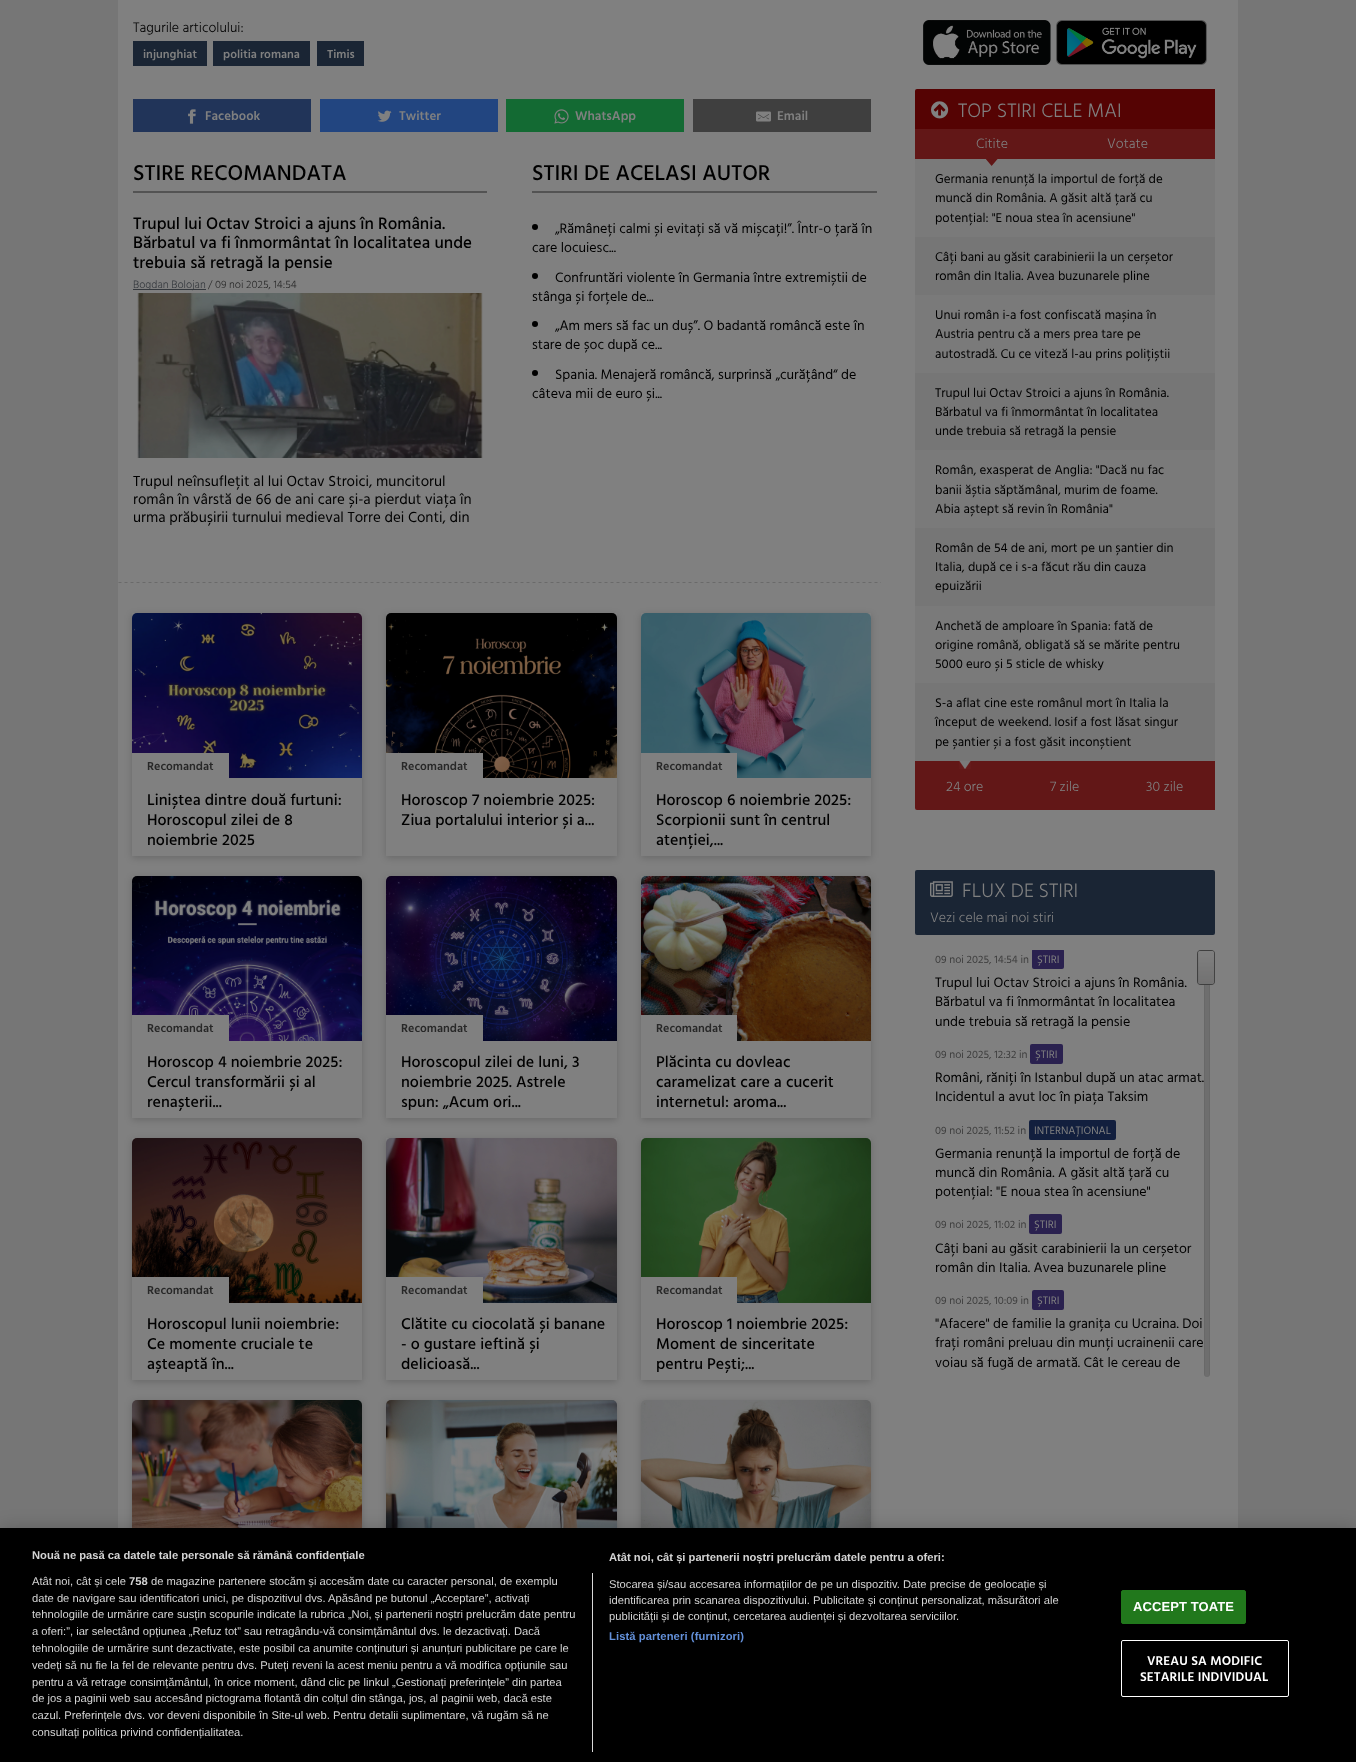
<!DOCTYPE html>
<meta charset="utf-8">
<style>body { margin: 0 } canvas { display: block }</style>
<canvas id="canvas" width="1356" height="1762"></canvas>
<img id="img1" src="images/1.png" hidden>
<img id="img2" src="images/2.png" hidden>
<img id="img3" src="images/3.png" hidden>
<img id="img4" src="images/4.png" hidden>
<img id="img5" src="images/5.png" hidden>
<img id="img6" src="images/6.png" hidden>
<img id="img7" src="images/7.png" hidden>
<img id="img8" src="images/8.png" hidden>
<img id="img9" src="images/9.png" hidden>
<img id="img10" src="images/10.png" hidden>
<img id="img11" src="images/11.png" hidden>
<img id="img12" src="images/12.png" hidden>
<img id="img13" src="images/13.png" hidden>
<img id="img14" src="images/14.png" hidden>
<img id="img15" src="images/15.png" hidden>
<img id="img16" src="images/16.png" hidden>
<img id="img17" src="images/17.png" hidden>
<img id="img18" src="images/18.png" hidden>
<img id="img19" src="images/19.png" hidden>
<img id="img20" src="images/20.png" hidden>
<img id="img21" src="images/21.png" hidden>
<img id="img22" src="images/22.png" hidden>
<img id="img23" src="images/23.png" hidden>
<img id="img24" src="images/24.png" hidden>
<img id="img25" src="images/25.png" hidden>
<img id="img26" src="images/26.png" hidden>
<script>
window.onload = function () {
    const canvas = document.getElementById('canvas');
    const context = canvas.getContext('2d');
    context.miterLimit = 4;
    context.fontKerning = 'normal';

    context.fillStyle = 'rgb(118, 118, 118)';
    context.fillRect(0, 0, 1356, 1762);
    context.fillStyle = 'rgb(128, 128, 128)';
    context.fillRect(118, 0, 1120, 1528);
    context.fillStyle = 'rgb(26, 37, 52)';
    context.fillRect(133, 41, 74, 25);
    context.fillRect(213, 41, 97, 25);
    context.fillRect(317, 41, 47, 25);
    context.fillStyle = 'rgb(33, 52, 89)';
    context.fillRect(133, 99, 178, 33);
    context.drawImage(document.getElementById('img1'), 188, 109, 8, 15);
    context.fillStyle = 'rgb(34, 69, 128)';
    context.fillRect(320, 99, 178, 33);
    context.drawImage(document.getElementById('img2'), 377, 110, 15, 12);
    context.fillStyle = 'rgb(19, 106, 51)';
    context.fillRect(506, 99, 178, 33);
    context.drawImage(document.getElementById('img3'), 554, 109, 15, 15);
    context.fillStyle = 'rgb(63, 63, 63)';
    context.fillRect(693, 99, 178, 33);
    context.drawImage(document.getElementById('img4'), 756, 111, 15, 11);
    context.fillStyle = 'rgb(83, 83, 83)';
    context.fillRect(133, 191, 354, 2);
    context.fillStyle = 'rgb(51, 55, 60)';
    context.fillRect(133, 289, 73, 1);
    context.drawImage(document.getElementById('img5'), 137, 293, 346, 165);
    context.fillStyle = 'rgb(83, 83, 83)';
    context.fillRect(532, 191, 345, 2);
    context.fillStyle = 'rgb(0, 0, 0)';
    context.beginPath();
    context.arc(535, 227, 3, 0, 2 * Math.PI);
    context.fill();
    context.beginPath();
    context.arc(535, 276, 3, 0, 2 * Math.PI);
    context.fill();
    context.beginPath();
    context.arc(535, 324, 3, 0, 2 * Math.PI);
    context.fill();
    context.beginPath();
    context.arc(535, 373, 3, 0, 2 * Math.PI);
    context.fill();
    context.drawImage(document.getElementById('img6'), 118, 582, 763, 1);
    context.save();
    context.beginPath();
    context.moveTo(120, 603);
    context.lineTo(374, 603);
    context.lineTo(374, 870);
    context.lineTo(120, 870);
    context.closePath();
    context.moveTo(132, 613);
    context.lineTo(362, 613);
    context.lineTo(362, 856);
    context.lineTo(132, 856);
    context.closePath();
    context.clip('evenodd');
    context.fillStyle = 'rgba(0, 0, 0, 0.18)';
    context.filter = 'blur(3.5px)';
    context.beginPath();
    context.rect(132, 615, 230, 243);
    context.fill();
    context.filter = 'none';
    context.restore();
    context.drawImage(document.getElementById('img7'), 132, 613, 230, 165);
    context.fillStyle = 'rgb(128, 128, 128)';
    context.fillRect(132, 753, 97, 25);
    context.save();
    context.beginPath();
    context.moveTo(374, 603);
    context.lineTo(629, 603);
    context.lineTo(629, 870);
    context.lineTo(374, 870);
    context.closePath();
    context.moveTo(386, 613);
    context.lineTo(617, 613);
    context.lineTo(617, 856);
    context.lineTo(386, 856);
    context.closePath();
    context.clip('evenodd');
    context.fillStyle = 'rgba(0, 0, 0, 0.18)';
    context.filter = 'blur(3.5px)';
    context.beginPath();
    context.rect(386, 615, 231, 243);
    context.fill();
    context.filter = 'none';
    context.restore();
    context.drawImage(document.getElementById('img8'), 386, 613, 231, 165);
    context.fillRect(386, 753, 97, 25);
    context.save();
    context.beginPath();
    context.moveTo(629, 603);
    context.lineTo(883, 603);
    context.lineTo(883, 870);
    context.lineTo(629, 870);
    context.closePath();
    context.moveTo(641, 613);
    context.lineTo(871, 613);
    context.lineTo(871, 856);
    context.lineTo(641, 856);
    context.closePath();
    context.clip('evenodd');
    context.fillStyle = 'rgba(0, 0, 0, 0.18)';
    context.filter = 'blur(3.5px)';
    context.beginPath();
    context.rect(641, 615, 230, 243);
    context.fill();
    context.filter = 'none';
    context.restore();
    context.drawImage(document.getElementById('img9'), 641, 613, 230, 165);
    context.fillRect(641, 753, 96, 25);
    context.save();
    context.beginPath();
    context.moveTo(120, 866);
    context.lineTo(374, 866);
    context.lineTo(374, 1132);
    context.lineTo(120, 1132);
    context.closePath();
    context.moveTo(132, 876);
    context.lineTo(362, 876);
    context.lineTo(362, 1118);
    context.lineTo(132, 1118);
    context.closePath();
    context.clip('evenodd');
    context.fillStyle = 'rgba(0, 0, 0, 0.18)';
    context.filter = 'blur(3.5px)';
    context.beginPath();
    context.rect(132, 878, 230, 242);
    context.fill();
    context.filter = 'none';
    context.restore();
    context.drawImage(document.getElementById('img10'), 132, 876, 230, 165);
    context.fillRect(132, 1015, 97, 26);
    context.save();
    context.beginPath();
    context.moveTo(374, 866);
    context.lineTo(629, 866);
    context.lineTo(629, 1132);
    context.lineTo(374, 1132);
    context.closePath();
    context.moveTo(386, 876);
    context.lineTo(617, 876);
    context.lineTo(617, 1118);
    context.lineTo(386, 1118);
    context.closePath();
    context.clip('evenodd');
    context.fillStyle = 'rgba(0, 0, 0, 0.18)';
    context.filter = 'blur(3.5px)';
    context.beginPath();
    context.rect(386, 878, 231, 242);
    context.fill();
    context.filter = 'none';
    context.restore();
    context.drawImage(document.getElementById('img11'), 386, 876, 231, 165);
    context.fillRect(386, 1015, 97, 26);
    context.save();
    context.beginPath();
    context.moveTo(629, 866);
    context.lineTo(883, 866);
    context.lineTo(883, 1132);
    context.lineTo(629, 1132);
    context.closePath();
    context.moveTo(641, 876);
    context.lineTo(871, 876);
    context.lineTo(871, 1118);
    context.lineTo(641, 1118);
    context.closePath();
    context.clip('evenodd');
    context.fillStyle = 'rgba(0, 0, 0, 0.18)';
    context.filter = 'blur(3.5px)';
    context.beginPath();
    context.rect(641, 878, 230, 242);
    context.fill();
    context.filter = 'none';
    context.restore();
    context.drawImage(document.getElementById('img12'), 641, 876, 230, 165);
    context.fillRect(641, 1015, 96, 26);
    context.save();
    context.beginPath();
    context.moveTo(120, 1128);
    context.lineTo(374, 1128);
    context.lineTo(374, 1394);
    context.lineTo(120, 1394);
    context.closePath();
    context.moveTo(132, 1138);
    context.lineTo(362, 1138);
    context.lineTo(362, 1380);
    context.lineTo(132, 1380);
    context.closePath();
    context.clip('evenodd');
    context.fillStyle = 'rgba(0, 0, 0, 0.18)';
    context.filter = 'blur(3.5px)';
    context.beginPath();
    context.rect(132, 1140, 230, 242);
    context.fill();
    context.filter = 'none';
    context.restore();
    context.drawImage(document.getElementById('img13'), 132, 1138, 230, 165);
    context.fillRect(132, 1277, 97, 26);
    context.save();
    context.beginPath();
    context.moveTo(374, 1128);
    context.lineTo(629, 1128);
    context.lineTo(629, 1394);
    context.lineTo(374, 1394);
    context.closePath();
    context.moveTo(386, 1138);
    context.lineTo(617, 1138);
    context.lineTo(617, 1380);
    context.lineTo(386, 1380);
    context.closePath();
    context.clip('evenodd');
    context.fillStyle = 'rgba(0, 0, 0, 0.18)';
    context.filter = 'blur(3.5px)';
    context.beginPath();
    context.rect(386, 1140, 231, 242);
    context.fill();
    context.filter = 'none';
    context.restore();
    context.drawImage(document.getElementById('img14'), 386, 1138, 231, 165);
    context.fillRect(386, 1277, 97, 26);
    context.save();
    context.beginPath();
    context.moveTo(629, 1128);
    context.lineTo(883, 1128);
    context.lineTo(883, 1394);
    context.lineTo(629, 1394);
    context.closePath();
    context.moveTo(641, 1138);
    context.lineTo(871, 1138);
    context.lineTo(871, 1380);
    context.lineTo(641, 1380);
    context.closePath();
    context.clip('evenodd');
    context.fillStyle = 'rgba(0, 0, 0, 0.18)';
    context.filter = 'blur(3.5px)';
    context.beginPath();
    context.rect(641, 1140, 230, 242);
    context.fill();
    context.filter = 'none';
    context.restore();
    context.drawImage(document.getElementById('img15'), 641, 1138, 230, 165);
    context.fillRect(641, 1277, 96, 26);
    context.fillStyle = 'rgba(0, 0, 0, 0.18)';
    context.filter = 'blur(3.5px)';
    context.beginPath();
    context.rect(132, 1402, 230, 242);
    context.fill();
    context.filter = 'none';
    context.drawImage(document.getElementById('img16'), 132, 1400, 230, 128);
    context.filter = 'blur(3.5px)';
    context.beginPath();
    context.rect(386, 1402, 231, 242);
    context.fill();
    context.filter = 'none';
    context.drawImage(document.getElementById('img17'), 386, 1400, 231, 128);
    context.filter = 'blur(3.5px)';
    context.beginPath();
    context.rect(641, 1402, 230, 242);
    context.fill();
    context.filter = 'none';
    context.drawImage(document.getElementById('img18'), 641, 1400, 230, 128);
    context.drawImage(document.getElementById('img19'), 923, 20, 128, 45);
    context.drawImage(document.getElementById('img20'), 1056, 20, 151, 45);
    context.fillStyle = 'rgb(85, 3, 3)';
    context.beginPath();
    context.roundRect(915, 89, 300, 40, [2, 0, 0, 0]);
    context.fill();
    context.drawImage(document.getElementById('img21'), 931, 101, 18, 18);
    context.fillStyle = 'rgb(98, 23, 23)';
    context.fillRect(915, 129, 300, 30);
    context.fillStyle = 'rgb(122, 122, 122)';
    context.fillRect(915, 159, 300, 78);
    context.drawImage(document.getElementById('img22'), 986, 159, 13, 7);
    context.fillStyle = 'rgb(118, 118, 118)';
    context.fillRect(915, 237, 300, 58);
    context.fillStyle = 'rgb(122, 122, 122)';
    context.fillRect(915, 295, 300, 78);
    context.fillStyle = 'rgb(118, 118, 118)';
    context.fillRect(915, 373, 300, 77);
    context.fillStyle = 'rgb(122, 122, 122)';
    context.fillRect(915, 450, 300, 78);
    context.fillStyle = 'rgb(118, 118, 118)';
    context.fillRect(915, 528, 300, 78);
    context.fillStyle = 'rgb(122, 122, 122)';
    context.fillRect(915, 606, 300, 77);
    context.fillStyle = 'rgb(118, 118, 118)';
    context.fillRect(915, 683, 300, 78);
    context.fillStyle = 'rgb(98, 23, 23)';
    context.beginPath();
    context.roundRect(915, 761, 300, 49, [0, 0, 0, 2]);
    context.fill();
    context.drawImage(document.getElementById('img23'), 959, 761, 12, 8);
    context.fillStyle = 'rgb(26, 37, 52)';
    context.beginPath();
    context.roundRect(915, 870, 300, 65, 2);
    context.fill();
    context.drawImage(document.getElementById('img24'), 930, 881, 23, 16);
    context.save();
    context.beginPath();
    context.rect(915, 950, 300, 430);
    context.clip();
    context.fillStyle = 'rgb(42, 33, 79)';
    context.beginPath();
    context.roundRect(1032, 949, 32, 20, 2);
    context.fill();
    context.restore();
    context.drawImage(document.getElementById('img25'), 1204, 985, 6, 392);
    context.fillStyle = 'rgb(85, 85, 85)';
    context.beginPath();
    context.roundRect(1197, 950, 18, 35, 4);
    context.fill();
    context.drawImage(document.getElementById('img26'), 1197, 950, 18, 35);
    context.fillStyle = 'rgb(42, 33, 79)';
    context.beginPath();
    context.roundRect(1030, 1044, 33, 20, 2);
    context.fill();
    context.fillStyle = 'rgb(18, 31, 62)';
    context.beginPath();
    context.roundRect(1029, 1120, 87, 20, 2);
    context.fill();
    context.fillStyle = 'rgb(42, 33, 79)';
    context.beginPath();
    context.roundRect(1029, 1214, 33, 20, 2);
    context.fill();
    context.beginPath();
    context.roundRect(1032, 1290, 32, 20, 2);
    context.fill();
    context.fillStyle = 'rgba(0, 0, 0, 0.2)';
    context.filter = 'blur(9px)';
    context.beginPath();
    context.rect(0, 1528, 1356, 234);
    context.fill();
    context.filter = 'none';
    context.fillStyle = 'rgb(0, 0, 0)';
    context.fillRect(0, 1528, 1356, 234);
    context.fillStyle = 'rgb(216, 216, 216)';
    context.fillRect(592, 1573, 1, 179);
    context.fillStyle = 'rgb(33, 120, 28)';
    context.beginPath();
    context.roundRect(1121.5, 1590.5, 124, 33, 1.5);
    context.fill();
    context.strokeStyle = 'rgb(33, 120, 28)';
    context.stroke();
    context.beginPath();
    context.roundRect(1121.5, 1640.5, 167, 56, 1.5);
    context.strokeStyle = 'rgb(255, 255, 255)';
    context.stroke();
    context.font = '300 14px Hind Vadodara';
    context.fillStyle = 'rgb(0, 0, 0)';
    context.fillText('Tagurile articolului:', 133, 32);
    context.font = '600 12px Hind Vadodara';
    context.fillStyle = 'rgb(128, 128, 128)';
    context.fillText('injunghiat', 143, 58);
    context.fillText('politia romana', 223, 58);
    context.fillText('Timis', 327, 58);
    context.font = '600 13px Hind Vadodara';
    context.fillText('Facebook', 205, 120);
    context.fillText('Twitter', 399, 120);
    context.fillText('WhatsApp', 575, 120);
    context.fillText('Email', 777, 120);
    context.font = '500 22px Hind Vadodara';
    context.fillStyle = 'rgb(0, 0, 0)';
    context.fillText('STIRE RECOMANDATA', 133, 180);
    context.font = '500 17px Hind Vadodara';
    context.fillText('Trupul lui Octav Stroici a ajuns în România.', 133, 229);
    context.fillText('Bărbatul va fi înmormântat în localitatea unde', 133, 248);
    context.save();
    context.beginPath();
    context.rect(133, 213, 354, 58);
    context.clip();
    context.fillText('trebuia să retragă la pensie', 133, 268);
    context.restore();
    context.font = '300 11px Hind Vadodara';
    context.fillStyle = 'rgb(51, 55, 60)';
    context.fillText('Bogdan Bolojan', 133, 288);
    context.fillStyle = 'rgb(40, 40, 40)';
    context.fillText('/ 09 noi 2025, 14:54', 208, 288);
    context.font = '15px Hind Vadodara';
    context.fillStyle = 'rgb(0, 0, 0)';
    context.fillText('Trupul neînsuflețit al lui Octav Stroici, muncitorul', 133, 486);
    context.fillText('român în vârstă de 66 de ani care și-a pierdut viața în', 133, 504);
    context.fillText('urma prăbușirii turnului medieval Torre dei Conti, din', 133, 522);
    context.font = '500 22px Hind Vadodara';
    context.fillText('STIRI DE ACELASI AUTOR', 532, 180);
    context.font = '14px Hind Vadodara';
    context.fillText('„Rămâneți calmi și evitați să vă mișcați!”. Într-o țară în', 555, 233);
    context.fillText('care locuiesc...', 532, 252);
    context.fillText('Confruntări violente în Germania între extremiștii de', 555, 282);
    context.fillText('stânga și forțele de...', 532, 301);
    context.fillText('„Am mers să fac un duș”. O badantă româncă este în', 555, 330);
    context.fillText('stare de șoc după ce...', 532, 349);
    context.fillText('Spania. Menajeră româncă, surprinsă „curățând“ de', 555, 379);
    context.fillText('câteva mii de euro și...', 532, 398);
    context.font = '600 12px Hind Vadodara';
    context.fillStyle = 'rgb(40, 40, 40)';
    context.fillText('Recomandat', 147, 770);
    context.letterSpacing = '0.05px';
    context.font = '500 16px Hind Vadodara';
    context.fillStyle = 'rgb(0, 0, 0)';
    context.fillText('Liniștea dintre două furtuni:', 147, 805);
    context.fillText('Horoscopul zilei de 8', 147, 825);
    context.fillText('noiembrie 2025', 147, 845);
    context.letterSpacing = '0px';
    context.font = '600 12px Hind Vadodara';
    context.fillStyle = 'rgb(40, 40, 40)';
    context.fillText('Recomandat', 401, 770);
    context.letterSpacing = '0.05px';
    context.font = '500 16px Hind Vadodara';
    context.fillStyle = 'rgb(0, 0, 0)';
    context.fillText('Horoscop 7 noiembrie 2025:', 401, 805);
    context.fillText('Ziua portalului interior și a...', 401, 825);
    context.letterSpacing = '0px';
    context.font = '600 12px Hind Vadodara';
    context.fillStyle = 'rgb(40, 40, 40)';
    context.fillText('Recomandat', 656, 770);
    context.letterSpacing = '0.05px';
    context.font = '500 16px Hind Vadodara';
    context.fillStyle = 'rgb(0, 0, 0)';
    context.fillText('Horoscop 6 noiembrie 2025:', 656, 805);
    context.fillText('Scorpionii sunt în centrul', 656, 825);
    context.fillText('atenției,...', 656, 845);
    context.letterSpacing = '0px';
    context.font = '600 12px Hind Vadodara';
    context.fillStyle = 'rgb(40, 40, 40)';
    context.fillText('Recomandat', 147, 1032);
    context.letterSpacing = '0.05px';
    context.font = '500 16px Hind Vadodara';
    context.fillStyle = 'rgb(0, 0, 0)';
    context.fillText('Horoscop 4 noiembrie 2025:', 147, 1067);
    context.fillText('Cercul transformării și al', 147, 1087);
    context.fillText('renașterii...', 147, 1107);
    context.letterSpacing = '0px';
    context.font = '600 12px Hind Vadodara';
    context.fillStyle = 'rgb(40, 40, 40)';
    context.fillText('Recomandat', 401, 1032);
    context.letterSpacing = '0.05px';
    context.font = '500 16px Hind Vadodara';
    context.fillStyle = 'rgb(0, 0, 0)';
    context.fillText('Horoscopul zilei de luni, 3', 401, 1067);
    context.fillText('noiembrie 2025. Astrele', 401, 1087);
    context.fillText('spun: „Acum ori...', 401, 1107);
    context.letterSpacing = '0px';
    context.font = '600 12px Hind Vadodara';
    context.fillStyle = 'rgb(40, 40, 40)';
    context.fillText('Recomandat', 656, 1032);
    context.letterSpacing = '0.05px';
    context.font = '500 16px Hind Vadodara';
    context.fillStyle = 'rgb(0, 0, 0)';
    context.fillText('Plăcinta cu dovleac', 656, 1067);
    context.fillText('caramelizat care a cucerit', 656, 1087);
    context.fillText('internetul: aroma...', 656, 1107);
    context.letterSpacing = '0px';
    context.font = '600 12px Hind Vadodara';
    context.fillStyle = 'rgb(40, 40, 40)';
    context.fillText('Recomandat', 147, 1294);
    context.letterSpacing = '0.05px';
    context.font = '500 16px Hind Vadodara';
    context.fillStyle = 'rgb(0, 0, 0)';
    context.fillText('Horoscopul lunii noiembrie:', 147, 1329);
    context.fillText('Ce momente cruciale te', 147, 1349);
    context.fillText('așteaptă în...', 147, 1369);
    context.letterSpacing = '0px';
    context.font = '600 12px Hind Vadodara';
    context.fillStyle = 'rgb(40, 40, 40)';
    context.fillText('Recomandat', 401, 1294);
    context.letterSpacing = '0.05px';
    context.font = '500 16px Hind Vadodara';
    context.fillStyle = 'rgb(0, 0, 0)';
    context.fillText('Clătite cu ciocolată și banane', 401, 1329);
    context.fillText('- o gustare ieftină și', 401, 1349);
    context.fillText('delicioasă...', 401, 1369);
    context.letterSpacing = '0px';
    context.font = '600 12px Hind Vadodara';
    context.fillStyle = 'rgb(40, 40, 40)';
    context.fillText('Recomandat', 656, 1294);
    context.letterSpacing = '0.05px';
    context.font = '500 16px Hind Vadodara';
    context.fillStyle = 'rgb(0, 0, 0)';
    context.fillText('Horoscop 1 noiembrie 2025:', 656, 1329);
    context.fillText('Moment de sinceritate', 656, 1349);
    context.fillText('pentru Pești;...', 656, 1369);
    context.letterSpacing = '0px';
    context.font = '300 20px Hind Vadodara';
    context.fillStyle = 'rgb(128, 128, 128)';
    context.fillText('TOP STIRI CELE MAI', 958, 117);
    context.font = '300 14px Hind Vadodara';
    context.fillText('Citite', 976, 148);
    context.fillText('Votate', 1107, 148);
    context.font = '13px Hind Vadodara';
    context.fillStyle = 'rgb(0, 0, 0)';
    context.fillText('Germania renunță la importul de forță de', 935, 183);
    context.fillText('muncă din România. A găsit altă țară cu', 935, 202);
    context.fillText('potențial: "E noua stea în acensiune"', 935, 222);
    context.fillText('Câți bani au găsit carabinierii la un cerșetor', 935, 261);
    context.fillText('român din Italia. Avea buzunarele pline', 935, 280);
    context.fillText('Unui român i-a fost confiscată mașina în', 935, 319);
    context.fillText('Austria pentru că a mers prea tare pe', 935, 338);
    context.fillText('autostradă. Cu ce viteză l-au prins polițiștii', 935, 358);
    context.fillText('Trupul lui Octav Stroici a ajuns în România.', 935, 397);
    context.fillText('Bărbatul va fi înmormântat în localitatea', 935, 416);
    context.fillText('unde trebuia să retragă la pensie', 935, 435);
    context.fillText('Român, exasperat de Anglia: "Dacă nu fac', 935, 474);
    context.fillText('banii ăștia săptămânal, murim de foame.', 935, 494);
    context.fillText('Abia aștept să revin în România"', 935, 513);
    context.fillText('Român de 54 de ani, mort pe un șantier din', 935, 552);
    context.fillText('Italia, după ce i s-a făcut rău din cauza', 935, 571);
    context.fillText('epuizării', 935, 590);
    context.fillText('Anchetă de amploare în Spania: fată de', 935, 630);
    context.fillText('origine română, obligată să se mărite pentru', 935, 649);
    context.fillText('5000 euro și 5 sticle de whisky', 935, 668);
    context.fillText('S-a aflat cine este românul mort în Italia la', 935, 707);
    context.fillText('început de weekend. Iosif a fost lăsat singur', 935, 726);
    context.fillText('pe șantier și a fost găsit inconștient', 935, 746);
    context.font = '300 14px Hind Vadodara';
    context.fillStyle = 'rgb(128, 128, 128)';
    context.fillText('24 ore', 946, 791);
    context.fillText('7 zile', 1050, 791);
    context.fillText('30 zile', 1146, 791);
    context.font = '300 20px Hind Vadodara';
    context.fillText('FLUX DE STIRI', 962, 897);
    context.font = '300 14px Hind Vadodara';
    context.fillText('Vezi cele mai noi stiri', 930, 922);
    context.font = '11px Hind Vadodara';
    context.fillStyle = 'rgb(61, 61, 61)';
    context.fillText('09 noi 2025, 14:54 in', 935, 963);
    context.fillStyle = 'rgb(128, 128, 128)';
    context.fillText('ȘTIRI', 1037, 963);
    context.font = '14px Hind Vadodara';
    context.fillStyle = 'rgb(0, 0, 0)';
    context.fillText('Trupul lui Octav Stroici a ajuns în România.', 935, 987);
    context.fillText('Bărbatul va fi înmormântat în localitatea', 935, 1006);
    context.fillText('unde trebuia să retragă la pensie', 935, 1026);
    context.font = '11px Hind Vadodara';
    context.fillStyle = 'rgb(61, 61, 61)';
    context.fillText('09 noi 2025, 12:32 in', 935, 1058);
    context.fillStyle = 'rgb(128, 128, 128)';
    context.fillText('ȘTIRI', 1035, 1058);
    context.font = '14px Hind Vadodara';
    context.fillStyle = 'rgb(0, 0, 0)';
    context.fillText('Români, răniți în Istanbul după un atac armat.', 935, 1082);
    context.fillText('Incidentul a avut loc în piața Taksim', 935, 1101);
    context.font = '11px Hind Vadodara';
    context.fillStyle = 'rgb(61, 61, 61)';
    context.fillText('09 noi 2025, 11:52 in', 935, 1134);
    context.fillStyle = 'rgb(128, 128, 128)';
    context.fillText('INTERNAȚIONAL', 1034, 1134);
    context.font = '14px Hind Vadodara';
    context.fillStyle = 'rgb(0, 0, 0)';
    context.fillText('Germania renunță la importul de forță de', 935, 1158);
    context.fillText('muncă din România. A găsit altă țară cu', 935, 1177);
    context.fillText('potențial: "E noua stea în acensiune"', 935, 1196);
    context.font = '11px Hind Vadodara';
    context.fillStyle = 'rgb(61, 61, 61)';
    context.fillText('09 noi 2025, 11:02 in', 935, 1228);
    context.fillStyle = 'rgb(128, 128, 128)';
    context.fillText('ȘTIRI', 1034, 1228);
    context.font = '14px Hind Vadodara';
    context.fillStyle = 'rgb(0, 0, 0)';
    context.fillText('Câți bani au găsit carabinierii la un cerșetor', 935, 1253);
    context.fillText('român din Italia. Avea buzunarele pline', 935, 1272);
    context.font = '11px Hind Vadodara';
    context.fillStyle = 'rgb(61, 61, 61)';
    context.fillText('09 noi 2025, 10:09 in', 935, 1304);
    context.fillStyle = 'rgb(128, 128, 128)';
    context.fillText('ȘTIRI', 1037, 1304);
    context.font = '14px Hind Vadodara';
    context.fillStyle = 'rgb(0, 0, 0)';
    context.fillText('"Afacere" de familie la granița cu Ucraina. Doi', 935, 1328);
    context.fillText('frați români preluau din munți ucrainenii care', 935, 1347);
    context.fillText('voiau să fugă de armată. Cât le cereau de', 935, 1367);
    context.font = 'bold 11.2px Liberation Sans';
    context.fillStyle = 'rgb(212, 212, 212)';
    context.fillText('Nouă ne pasă ca datele tale personale să rămână confidențiale', 32, 1559);
    context.fillText('Atât noi, cât și partenerii noștri prelucrăm datele pentru a oferi:', 609, 1561);
    context.font = '11.2px Liberation Sans';
    context.fillText('Stocarea și/sau accesarea informațiilor de pe un dispozitiv. Date precise de geolocație și', 609, 1588);
    context.fillText('identificarea prin scanarea dispozitivului. Publicitate și conținut personalizat, măsurători ale', 609, 1604);
    context.fillText('publicității și de conținut, cercetarea audienței și dezvoltarea serviciilor.', 609, 1620);
    context.letterSpacing = '0.1px';
    context.font = 'bold 11.2px Liberation Sans';
    context.fillStyle = 'rgb(99, 144, 217)';
    context.fillText('Listă parteneri (furnizori)', 609, 1640);
    context.letterSpacing = '0px';
    context.font = '11.2px Liberation Sans';
    context.fillStyle = 'rgb(212, 212, 212)';
    context.fillText('Atât noi, cât și cele', 32, 1585);
    context.font = 'bold 11.2px Liberation Sans';
    context.fillText('758', 129, 1585);
    context.font = '11.2px Liberation Sans';
    context.fillText('de magazine partenere stocăm și accesăm date cu caracter personal, de exemplu', 151, 1585);
    context.fillText('date de navigare sau identificatori unici, pe dispozitivul dvs. Apăsând pe butonul „Acceptare”, activați', 32, 1602);
    context.fillText('tehnologiile de urmărire care susțin scopurile indicate la rubrica „Noi, și partenerii noștri prelucrăm date pentru', 32, 1618);
    context.fillText('a oferi:”, iar selectând opțiunea „Refuz tot” sau retragându-vă consimțământul dvs. le dezactivați. Dacă', 32, 1635);
    context.fillText('tehnologiile de urmărire sunt dezactivate, este posibil ca anumite conținuturi și anunțuri publicitare pe care le', 32, 1652);
    context.fillText('vedeți să nu fie la fel de relevante pentru dvs. Puteți reveni la acest meniu pentru a vă modifica opțiunile sau', 32, 1669);
    context.fillText('pentru a vă retrage consimțământul, în orice moment, dând clic pe linkul „Gestionați preferințele” din partea', 32, 1686);
    context.fillText('de jos a paginii web sau accesând pictograma flotantă din colțul din stânga, jos, al paginii web, dacă este', 32, 1702);
    context.fillText('cazul. Preferințele dvs. vor deveni disponibile în Site-ul web. Pentru detalii suplimentare, vă rugăm să ne', 32, 1719);
    context.fillText('consultați politica privind confidențialitatea.', 32, 1736);
    context.letterSpacing = '0.1px';
    context.font = 'bold 13px Liberation Sans';
    context.fillStyle = 'rgb(255, 255, 255)';
    context.fillText('ACCEPT TOATE', 1133, 1611);
    context.font = '600 13px Hind Vadodara';
    context.fillText('VREAU SA MODIFIC', 1147, 1665);
    context.fillText('SETARILE INDIVIDUAL', 1140, 1681);
};
</script>
